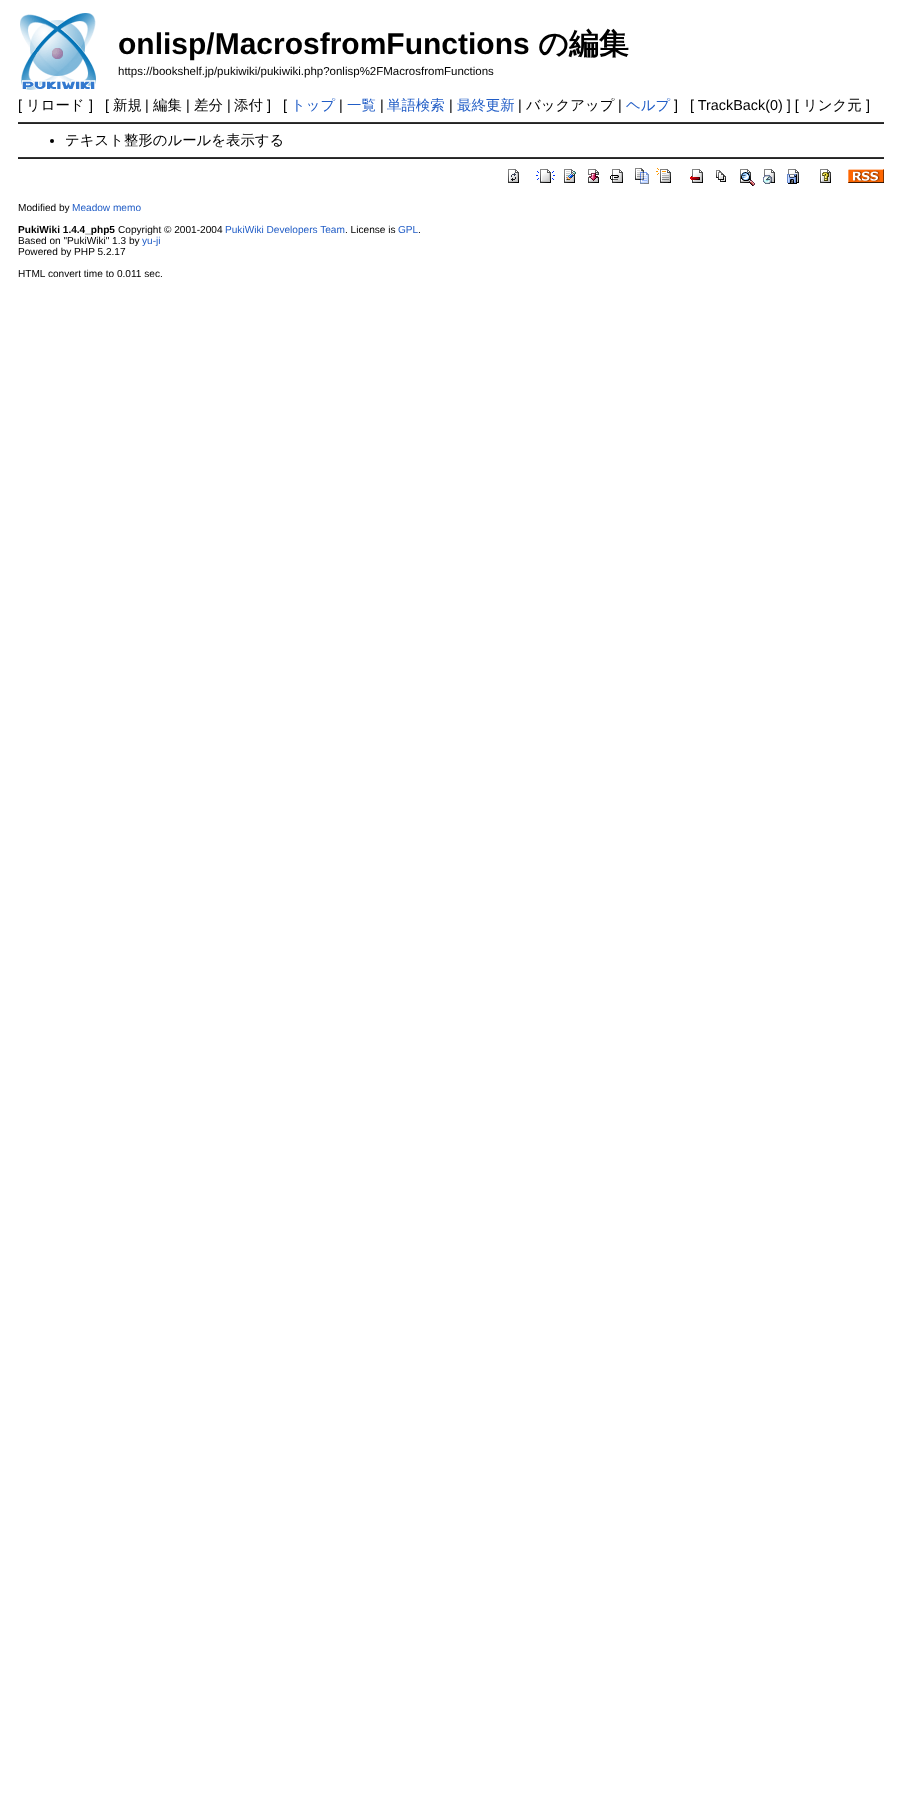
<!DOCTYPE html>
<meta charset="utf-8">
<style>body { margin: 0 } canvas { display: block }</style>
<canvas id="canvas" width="902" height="1808"></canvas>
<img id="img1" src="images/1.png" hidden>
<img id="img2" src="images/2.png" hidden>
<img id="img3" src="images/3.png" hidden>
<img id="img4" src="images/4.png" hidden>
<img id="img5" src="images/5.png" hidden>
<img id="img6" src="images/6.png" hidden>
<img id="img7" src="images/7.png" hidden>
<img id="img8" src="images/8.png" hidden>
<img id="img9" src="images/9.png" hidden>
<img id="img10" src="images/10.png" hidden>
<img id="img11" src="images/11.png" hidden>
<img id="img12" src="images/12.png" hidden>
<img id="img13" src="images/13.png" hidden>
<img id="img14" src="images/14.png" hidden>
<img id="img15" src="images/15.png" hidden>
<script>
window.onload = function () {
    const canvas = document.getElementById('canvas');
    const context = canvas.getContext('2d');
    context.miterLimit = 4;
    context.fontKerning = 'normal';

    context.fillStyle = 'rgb(255, 255, 255)';
    context.fillRect(0, 0, 902, 1808);
    context.drawImage(document.getElementById('img1'), 20, 13, 76, 77);
    context.fillStyle = 'rgb(51, 51, 51)';
    context.fillRect(18, 122, 866, 1);
    context.fillStyle = 'rgb(34, 34, 34)';
    context.fillRect(18, 123, 866, 1);
    context.fillStyle = 'rgb(0, 0, 0)';
    context.beginPath();
    context.arc(52, 141, 2, 0, 2 * Math.PI);
    context.fill();
    context.fillStyle = 'rgb(51, 51, 51)';
    context.fillRect(18, 157, 866, 1);
    context.fillStyle = 'rgb(34, 34, 34)';
    context.fillRect(18, 158, 866, 1);
    context.drawImage(document.getElementById('img2'), 508, 169, 11, 14);
    context.drawImage(document.getElementById('img3'), 536, 169, 19, 14);
    context.drawImage(document.getElementById('img4'), 564, 169, 12, 14);
    context.drawImage(document.getElementById('img5'), 588, 169, 11, 14);
    context.drawImage(document.getElementById('img6'), 610, 169, 13, 14);
    context.drawImage(document.getElementById('img7'), 635, 168, 14, 16);
    context.drawImage(document.getElementById('img8'), 656, 168, 15, 15);
    context.drawImage(document.getElementById('img9'), 690, 169, 13, 14);
    context.drawImage(document.getElementById('img10'), 716, 170, 10, 12);
    context.drawImage(document.getElementById('img11'), 740, 169, 15, 17);
    context.drawImage(document.getElementById('img12'), 763, 169, 12, 15);
    context.drawImage(document.getElementById('img13'), 787, 169, 12, 15);
    context.drawImage(document.getElementById('img14'), 820, 169, 11, 14);
    context.drawImage(document.getElementById('img15'), 848, 169, 36, 14);
    context.font = 'bold 30px Liberation Sans';
    context.fillStyle = 'rgb(0, 0, 0)';
    context.fillText('onlisp/MacrosfromFunctions', 118, 54);
    context.font = 'bold 30px WenQuanYi Zen Hei';
    context.fillText('の編集', 538, 54);
    context.font = '11.5px Liberation Sans';
    context.fillText('https://bookshelf.jp/pukiwiki/pukiwiki.php?onlisp%2FMacrosfromFunctions', 118, 75);
    context.font = '14.4px Liberation Sans';
    context.fillText('[', 18, 110);
    context.font = '500 14.4px WenQuanYi Zen Hei';
    context.fillText('リロード', 26, 110);
    context.font = '14.4px Liberation Sans';
    context.fillText(']   [', 89, 110);
    context.font = '500 14.4px WenQuanYi Zen Hei';
    context.fillText('新規', 113, 110);
    context.font = '14.4px Liberation Sans';
    context.fillText('|', 145, 110);
    context.font = '500 14.4px WenQuanYi Zen Hei';
    context.fillText('編集', 153, 110);
    context.font = '14.4px Liberation Sans';
    context.fillText('|', 186, 110);
    context.font = '500 14.4px WenQuanYi Zen Hei';
    context.fillText('差分', 194, 110);
    context.font = '14.4px Liberation Sans';
    context.fillText('|', 227, 110);
    context.font = '500 14.4px WenQuanYi Zen Hei';
    context.fillText('添付', 234, 110);
    context.font = '14.4px Liberation Sans';
    context.fillText(']   [', 267, 110);
    context.font = '500 14.4px WenQuanYi Zen Hei';
    context.fillStyle = 'rgb(33, 93, 198)';
    context.fillText('トップ', 291, 110);
    context.font = '14.4px Liberation Sans';
    context.fillStyle = 'rgb(0, 0, 0)';
    context.fillText('|', 339, 110);
    context.font = '500 14.4px WenQuanYi Zen Hei';
    context.fillStyle = 'rgb(33, 93, 198)';
    context.fillText('一覧', 347, 110);
    context.font = '14.4px Liberation Sans';
    context.fillStyle = 'rgb(0, 0, 0)';
    context.fillText('|', 380, 110);
    context.font = '500 14.4px WenQuanYi Zen Hei';
    context.fillStyle = 'rgb(33, 93, 198)';
    context.fillText('単語検索', 387, 110);
    context.font = '14.4px Liberation Sans';
    context.fillStyle = 'rgb(0, 0, 0)';
    context.fillText('|', 449, 110);
    context.font = '500 14.4px WenQuanYi Zen Hei';
    context.fillStyle = 'rgb(33, 93, 198)';
    context.fillText('最終更新', 457, 110);
    context.font = '14.4px Liberation Sans';
    context.fillStyle = 'rgb(0, 0, 0)';
    context.fillText('|', 518, 110);
    context.font = '500 14.4px WenQuanYi Zen Hei';
    context.fillText('バックアップ', 526, 110);
    context.font = '14.4px Liberation Sans';
    context.fillText('|', 618, 110);
    context.font = '500 14.4px WenQuanYi Zen Hei';
    context.fillStyle = 'rgb(33, 93, 198)';
    context.fillText('ヘルプ', 626, 110);
    context.font = '14.4px Liberation Sans';
    context.fillStyle = 'rgb(0, 0, 0)';
    context.fillText(']   [ TrackBack(0) ] [', 674, 110);
    context.font = '500 14.4px WenQuanYi Zen Hei';
    context.fillText('リンク元', 803, 110);
    context.font = '14.4px Liberation Sans';
    context.fillText(']', 866, 110);
    context.font = '500 14.4px WenQuanYi Zen Hei';
    context.fillText('テキスト整形のルールを表示する', 65, 145);
    context.font = '10.1px Liberation Sans';
    context.fillText('Modified by', 18, 211);
    context.fillStyle = 'rgb(33, 93, 198)';
    context.fillText('Meadow memo', 72, 211);
    context.font = 'bold 10.1px Liberation Sans';
    context.fillStyle = 'rgb(0, 0, 0)';
    context.fillText('PukiWiki 1.4.4_php5', 18, 233);
    context.font = '10.1px Liberation Sans';
    context.fillText('Copyright © 2001-2004', 118, 233);
    context.fillStyle = 'rgb(33, 93, 198)';
    context.fillText('PukiWiki Developers Team', 225, 233);
    context.fillStyle = 'rgb(0, 0, 0)';
    context.fillText('. License is', 345, 233);
    context.fillStyle = 'rgb(33, 93, 198)';
    context.fillText('GPL', 398, 233);
    context.fillStyle = 'rgb(0, 0, 0)';
    context.fillText('.', 418, 233);
    context.fillText('Based on "PukiWiki" 1.3 by', 18, 244);
    context.fillStyle = 'rgb(33, 93, 198)';
    context.fillText('yu-ji', 142, 244);
    context.fillStyle = 'rgb(0, 0, 0)';
    context.fillText('Powered by PHP 5.2.17', 18, 255);
    context.fillText('HTML convert time to 0.011 sec.', 18, 277);
};
</script>
